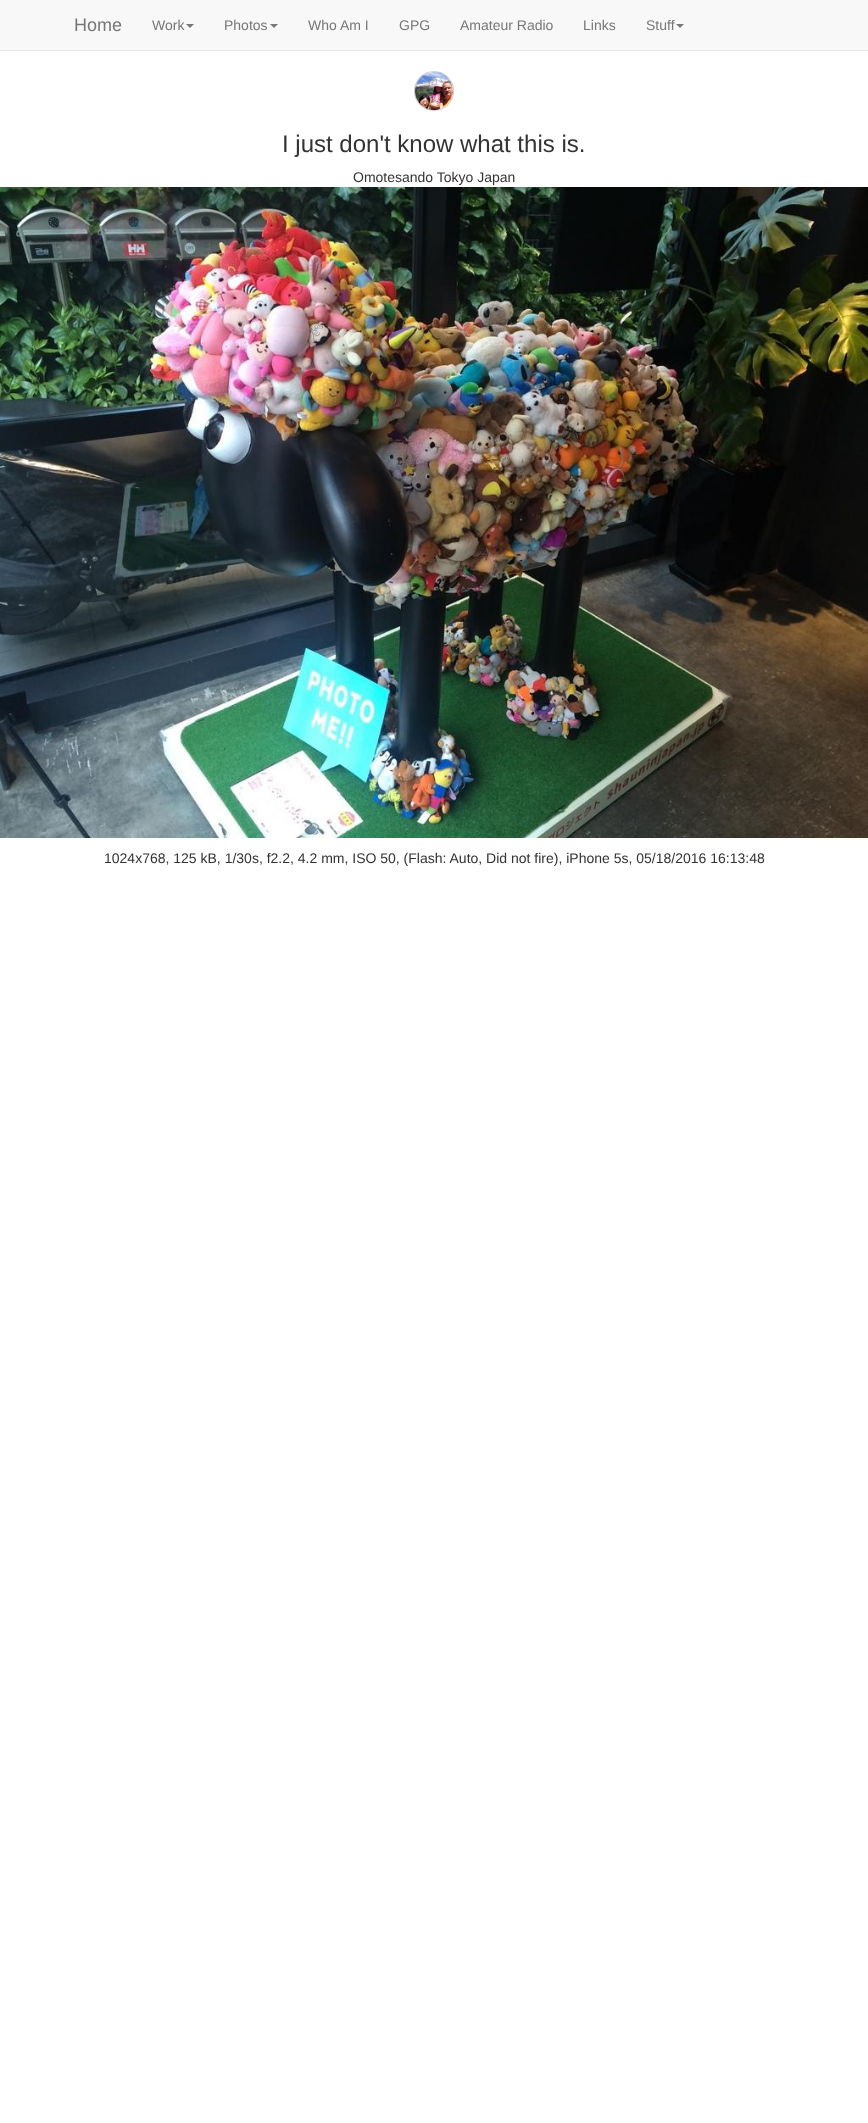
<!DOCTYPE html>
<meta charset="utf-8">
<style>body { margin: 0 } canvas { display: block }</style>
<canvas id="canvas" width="868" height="2123"></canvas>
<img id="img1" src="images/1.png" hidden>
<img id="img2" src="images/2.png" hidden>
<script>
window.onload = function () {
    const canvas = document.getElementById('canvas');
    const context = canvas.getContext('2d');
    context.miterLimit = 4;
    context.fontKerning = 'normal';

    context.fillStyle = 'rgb(255, 255, 255)';
    context.fillRect(0, 0, 868, 2123);
    context.fillStyle = 'rgb(248, 248, 248)';
    context.fillRect(0, 0, 868, 50);
    context.fillStyle = 'rgb(231, 231, 231)';
    context.fillRect(0, 50, 868, 1);
    context.fillStyle = 'rgb(119, 119, 119)';
    context.beginPath();
    context.moveTo(186, 24);
    context.lineTo(194, 24);
    context.lineTo(190, 28);
    context.closePath();
    context.fill();
    context.beginPath();
    context.moveTo(270, 24);
    context.lineTo(278, 24);
    context.lineTo(274, 28);
    context.closePath();
    context.fill();
    context.beginPath();
    context.moveTo(676, 24);
    context.lineTo(684, 24);
    context.lineTo(680, 28);
    context.closePath();
    context.fill();
    context.drawImage(document.getElementById('img1'), 414, 71, 40, 40);
    context.drawImage(document.getElementById('img2'), 0, 187, 868, 651);
    context.font = '18px Liberation Sans';
    context.fillText('Home', 74, 31);
    context.font = '14px Liberation Sans';
    context.fillText('Work', 152, 30);
    context.fillText('Photos', 224, 30);
    context.fillText('Who Am I', 308, 30);
    context.fillText('GPG', 399, 30);
    context.fillText('Amateur Radio', 460, 30);
    context.fillText('Links', 583, 30);
    context.fillText('Stuff', 646, 30);
    context.font = '24px Liberation Sans';
    context.fillStyle = 'rgb(51, 51, 51)';
    context.fillText('I just don\'t know what this is.', 282, 152);
    context.font = '14px Liberation Sans';
    context.fillText('Omotesando Tokyo Japan', 353, 182);
    context.fillText('1024x768, 125 kB, 1/30s, f2.2, 4.2 mm, ISO 50, (Flash: Auto, Did not fire), iPhone 5s, 05/18/2016 16:13:48', 104, 863);
};
</script>
